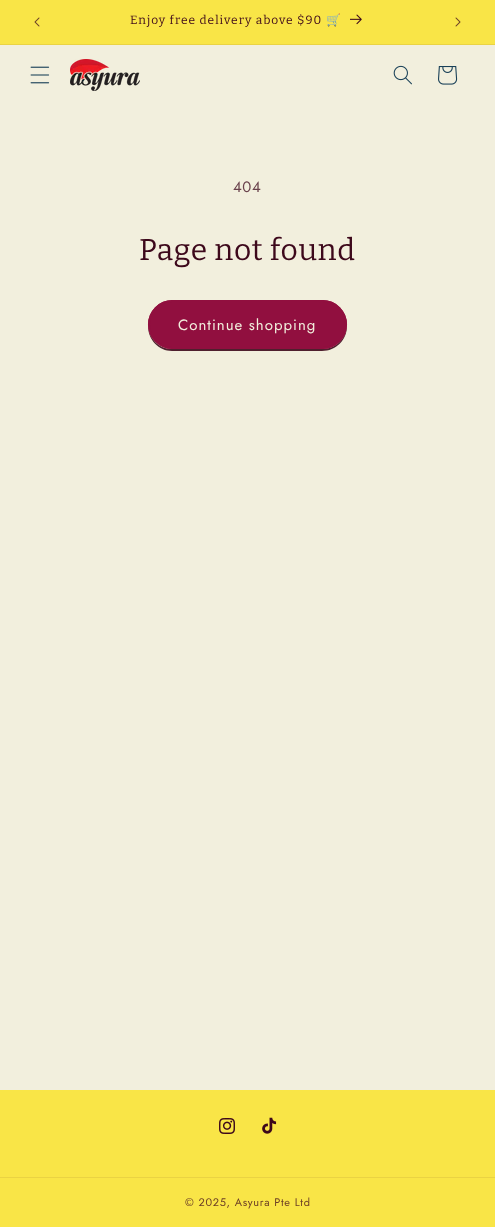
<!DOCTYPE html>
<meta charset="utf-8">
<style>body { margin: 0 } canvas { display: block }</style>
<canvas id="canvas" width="495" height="1227"></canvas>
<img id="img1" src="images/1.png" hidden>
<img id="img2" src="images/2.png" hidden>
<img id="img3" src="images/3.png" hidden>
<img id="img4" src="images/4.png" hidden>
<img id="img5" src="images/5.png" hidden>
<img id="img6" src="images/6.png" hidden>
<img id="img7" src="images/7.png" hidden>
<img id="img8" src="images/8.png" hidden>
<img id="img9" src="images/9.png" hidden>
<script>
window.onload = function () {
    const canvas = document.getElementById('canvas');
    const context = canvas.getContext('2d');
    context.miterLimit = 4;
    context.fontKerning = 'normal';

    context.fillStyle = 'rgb(242, 239, 221)';
    context.fillRect(0, 0, 495, 1227);
    context.fillStyle = 'rgb(249, 229, 71)';
    context.fillRect(0, 0, 495, 44);
    context.fillStyle = 'rgb(234, 211, 67)';
    context.fillRect(0, 44, 495, 1);
    context.drawImage(document.getElementById('img1'), 34, 17, 6, 10);
    context.drawImage(document.getElementById('img2'), 350, 14, 12, 11);
    context.drawImage(document.getElementById('img3'), 455, 17, 6, 10);
    context.drawImage(document.getElementById('img4'), 30, 66, 20, 18);
    context.drawImage(document.getElementById('img5'), 70, 59, 70, 32);
    context.drawImage(document.getElementById('img6'), 393, 65, 19, 20);
    context.drawImage(document.getElementById('img7'), 438, 66, 20, 19);
    context.fillStyle = 'rgb(79, 31, 46)';
    context.beginPath();
    context.moveTo(148, 325);
    context.lineTo(148, 326);
    context.bezierCurveTo(148, 340, 159, 351, 172, 351);
    context.lineTo(322, 351);
    context.bezierCurveTo(336, 351, 347, 340, 347, 326);
    context.lineTo(347, 325);
    context.bezierCurveTo(346, 339, 336, 349, 322, 349);
    context.lineTo(172, 349);
    context.bezierCurveTo(159, 349, 149, 339, 148, 325);
    context.closePath();
    context.fill();
    context.fillStyle = 'rgb(145, 15, 63)';
    context.beginPath();
    context.roundRect(148, 300, 199, 49, 24.5);
    context.fill();
    context.beginPath();
    context.roundRect(149, 301, 197, 47, 23.5);
    context.strokeStyle = 'rgb(145, 15, 63)';
    context.lineWidth = 2;
    context.stroke();
    context.fillStyle = 'rgb(249, 229, 71)';
    context.fillRect(0, 1090, 495, 137);
    context.drawImage(document.getElementById('img8'), 219, 1118, 16, 16);
    context.drawImage(document.getElementById('img9'), 262, 1117, 15, 17);
    context.fillStyle = 'rgb(234, 211, 67)';
    context.fillRect(0, 1177, 495, 1);
    context.letterSpacing = '1px';
    context.font = '12px Bitter';
    context.fillStyle = 'rgb(61, 8, 27)';
    context.fillText('Enjoy free delivery above $90', 130, 24);
    context.font = '12px Noto Color Emoji';
    context.fillText('🛒', 326, 24);
    context.letterSpacing = '0.6px';
    context.font = '15px Jost';
    context.fillStyle = 'rgb(106, 66, 76)';
    context.fillText('404', 233, 192);
    context.font = '30px Bitter';
    context.fillStyle = 'rgb(61, 8, 27)';
    context.fillText('Page not found', 139, 260);
    context.letterSpacing = '1px';
    context.font = '15px Jost';
    context.fillStyle = 'rgb(242, 239, 221)';
    context.fillText('Continue shopping', 178, 330);
    context.letterSpacing = '0.7px';
    context.font = '11px Jost';
    context.fillStyle = 'rgb(108, 63, 38)';
    context.fillText('© 2025, Asyura Pte Ltd', 185, 1206);
};
</script>
